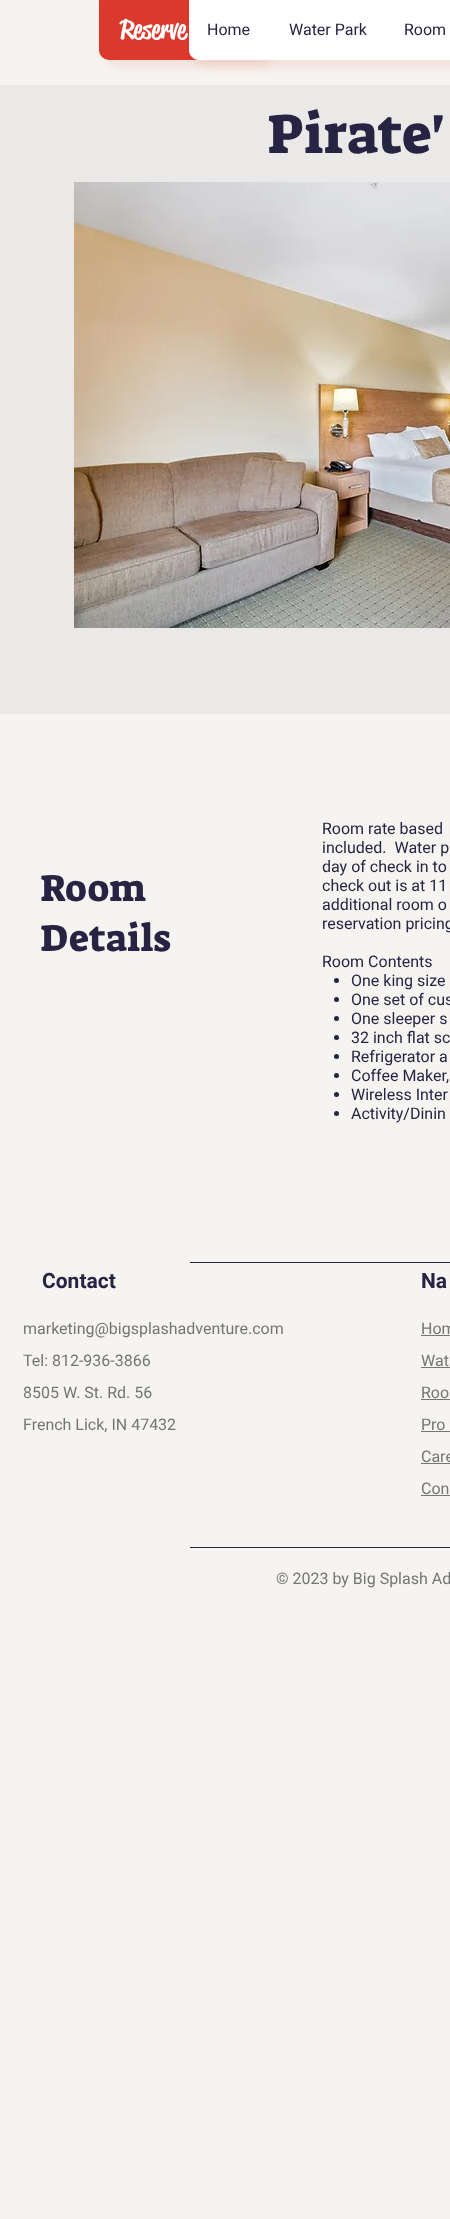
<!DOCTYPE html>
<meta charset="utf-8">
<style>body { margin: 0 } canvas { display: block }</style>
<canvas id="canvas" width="450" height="2219"></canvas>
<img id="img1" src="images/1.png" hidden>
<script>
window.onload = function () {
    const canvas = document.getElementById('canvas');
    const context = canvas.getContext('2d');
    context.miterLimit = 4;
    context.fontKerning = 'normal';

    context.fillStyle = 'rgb(246, 244, 240)';
    context.fillRect(0, 0, 450, 2219);
    context.fillStyle = 'rgba(218, 57, 43, 0.1)';
    context.filter = 'blur(5px)';
    context.beginPath();
    context.roundRect(106, 7, 166, 60, 10);
    context.fill();
    context.filter = 'none';
    context.fillStyle = 'rgb(218, 57, 43)';
    context.beginPath();
    context.roundRect(99, 0, 166, 60, [0, 0, 10, 10]);
    context.fill();
    context.fillStyle = 'rgba(218, 57, 43, 0.1)';
    context.filter = 'blur(5px)';
    context.beginPath();
    context.roundRect(196, 7, 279, 60, 10);
    context.fill();
    context.filter = 'none';
    context.fillStyle = 'rgb(255, 255, 255)';
    context.beginPath();
    context.moveTo(189, 0);
    context.lineTo(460, 0);
    context.lineTo(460, 50);
    context.bezierCurveTo(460, 55.5, 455.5, 60, 450, 60);
    context.lineTo(199, 60);
    context.bezierCurveTo(193.5, 60, 189, 55.5, 189, 50);
    context.closePath();
    context.fill();
    context.fillStyle = 'rgb(235, 233, 232)';
    context.fillRect(0, 85, 450, 629);
    context.drawImage(document.getElementById('img1'), 74, 182, 376, 446);
    context.fillStyle = 'rgb(39, 36, 67)';
    context.beginPath();
    context.arc(336.5, 980.5, 2.5, 0, 2 * Math.PI);
    context.fill();
    context.beginPath();
    context.arc(336.5, 999.5, 2.5, 0, 2 * Math.PI);
    context.fill();
    context.beginPath();
    context.arc(336.5, 1018.5, 2.5, 0, 2 * Math.PI);
    context.fill();
    context.beginPath();
    context.arc(336.5, 1037.5, 2.5, 0, 2 * Math.PI);
    context.fill();
    context.beginPath();
    context.arc(336.5, 1056.5, 2.5, 0, 2 * Math.PI);
    context.fill();
    context.beginPath();
    context.arc(336.5, 1075.5, 2.5, 0, 2 * Math.PI);
    context.fill();
    context.beginPath();
    context.arc(336.5, 1094.5, 2.5, 0, 2 * Math.PI);
    context.fill();
    context.beginPath();
    context.arc(336.5, 1113.5, 2.5, 0, 2 * Math.PI);
    context.fill();
    context.fillRect(190, 1262, 260, 1);
    context.fillStyle = 'rgb(117, 117, 117)';
    context.fillRect(421, 1335, 29, 1);
    context.fillRect(421, 1367, 29, 1);
    context.fillRect(421, 1399, 29, 1);
    context.fillRect(421, 1431, 29, 1);
    context.fillRect(421, 1463, 29, 1);
    context.fillRect(421, 1495, 29, 1);
    context.fillStyle = 'rgb(39, 36, 67)';
    context.fillRect(190, 1547, 260, 1);
    context.font = '500 26px "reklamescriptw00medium"';
    context.fillStyle = 'rgb(255, 255, 255)';
    context.fillText('Reserve', 120, 38);
    context.font = '16px Roboto';
    context.fillStyle = 'rgb(39, 36, 67)';
    context.fillText('Home', 207, 35);
    context.fillText('Water Park', 289, 35);
    context.fillText('Room', 404, 35);
    context.font = '56px Suez One';
    context.fillText('Pirate\'', 267, 153);
    context.font = '38px Suez One';
    context.fillText('Room', 40, 901);
    context.fillText('Details', 40, 951);
    context.font = '16px Roboto';
    context.fillText('Room rate based', 322, 834);
    context.fillText('included.  Water p', 322, 853);
    context.fillText('day of check in to', 322, 872);
    context.fillText('check out is at 11', 322, 891);
    context.fillText('additional room o', 322, 910);
    context.fillText('reservation pricing', 322, 929);
    context.fillText('Room Contents', 322, 967);
    context.fillText('One king size', 351, 986);
    context.fillText('One set of cus', 351, 1005);
    context.fillText('One sleeper s', 351, 1024);
    context.fillText('32 inch flat sc', 351, 1043);
    context.fillText('Refrigerator a', 351, 1062);
    context.fillText('Coffee Maker,', 351, 1081);
    context.fillText('Wireless Inter', 351, 1100);
    context.fillText('Activity/Dinin', 351, 1119);
    context.font = 'bold 21px Roboto';
    context.fillText('Contact', 42, 1288);
    context.font = '16px Roboto';
    context.fillStyle = 'rgb(117, 117, 117)';
    context.fillText('marketing@bigsplashadventure.com', 23, 1334);
    context.fillText('Tel: 812-936-3866', 23, 1366);
    context.fillText('8505 W. St. Rd. 56', 23, 1398);
    context.fillText('French Lick, IN 47432', 23, 1430);
    context.font = 'bold 21px Roboto';
    context.fillStyle = 'rgb(39, 36, 67)';
    context.fillText('Na', 421, 1288);
    context.font = '16px Roboto';
    context.fillStyle = 'rgb(117, 117, 117)';
    context.fillText('Hom', 421, 1334);
    context.fillText('Wat', 421, 1366);
    context.fillText('Roo', 421, 1398);
    context.fillText('Pro', 421, 1430);
    context.fillText('Care', 421, 1462);
    context.fillText('Con', 421, 1494);
    context.fillText('© 2023 by Big Splash Ad', 276, 1584);
};
</script>
